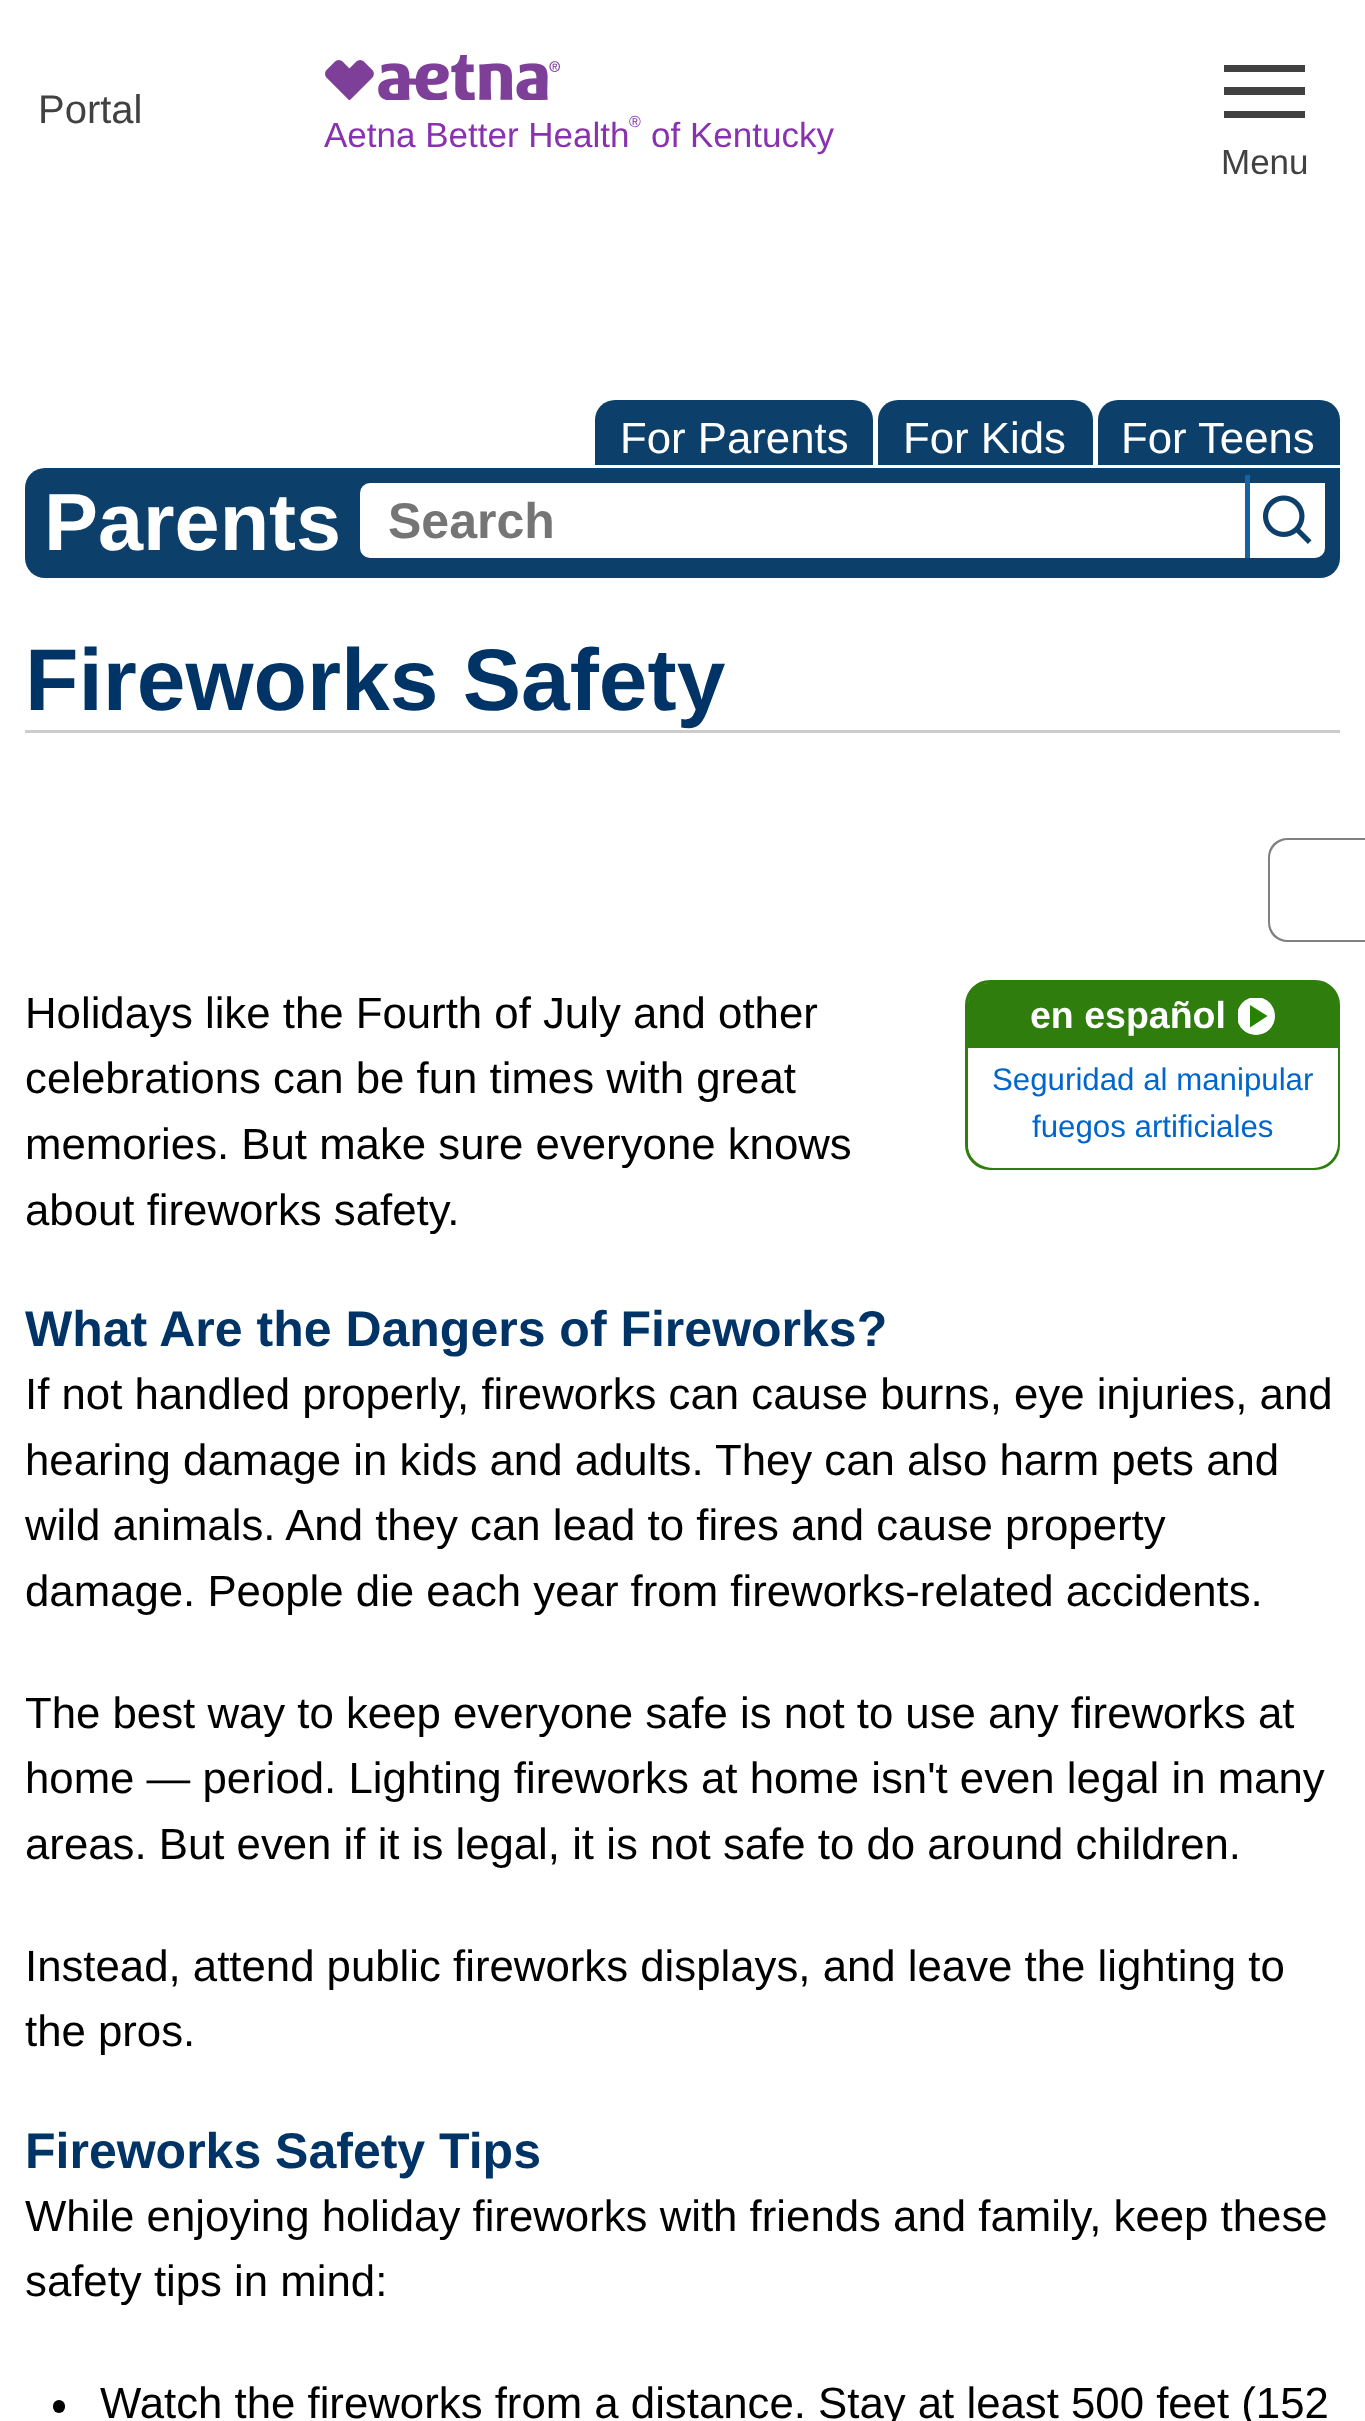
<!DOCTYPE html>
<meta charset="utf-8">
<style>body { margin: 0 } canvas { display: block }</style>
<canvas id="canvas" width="1365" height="2421"></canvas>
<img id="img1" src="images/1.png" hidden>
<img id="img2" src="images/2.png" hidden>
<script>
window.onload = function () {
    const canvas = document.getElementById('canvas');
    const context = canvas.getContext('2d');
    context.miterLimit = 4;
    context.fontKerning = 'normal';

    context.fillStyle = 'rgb(255, 255, 255)';
    context.fillRect(0, 0, 1365, 2421);
    context.drawImage(document.getElementById('img1'), 325, 55, 235, 45);
    context.fillStyle = 'rgb(65, 65, 65)';
    context.fillRect(1224, 87, 81, 8);
    context.fillRect(1224, 65, 81, 7);
    context.fillRect(1224, 111, 81, 7);
    context.fillStyle = 'rgb(13, 63, 107)';
    context.beginPath();
    context.roundRect(595, 400, 278, 65, [20, 20, 0, 0]);
    context.fill();
    context.beginPath();
    context.roundRect(878, 400, 215, 65, [20, 20, 0, 0]);
    context.fill();
    context.beginPath();
    context.roundRect(1098, 400, 242, 65, [20, 20, 0, 0]);
    context.fill();
    context.beginPath();
    context.roundRect(25, 468, 1315, 110, [20, 0, 20, 20]);
    context.fill();
    context.fillStyle = 'rgb(255, 255, 255)';
    context.beginPath();
    context.roundRect(367.5, 490.5, 870, 60, [2.5, 0, 0, 2.5]);
    context.fill();
    context.strokeStyle = 'rgb(255, 255, 255)';
    context.lineWidth = 15;
    context.stroke();
    context.fillStyle = 'rgb(21, 100, 162)';
    context.fillRect(1245, 475, 5, 83);
    context.fillStyle = 'rgb(255, 255, 255)';
    context.beginPath();
    context.roundRect(1250, 483, 75, 75, [0, 0, 10, 0]);
    context.fill();
    context.drawImage(document.getElementById('img2'), 1263, 495, 49, 49);
    context.fillStyle = 'rgb(204, 204, 204)';
    context.fillRect(25, 730, 1315, 3);
    context.fillStyle = 'rgb(128, 128, 128)';
    context.beginPath();
    context.moveTo(1288, 838);
    context.lineTo(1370, 838);
    context.lineTo(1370, 942);
    context.lineTo(1288, 942);
    context.bezierCurveTo(1276, 942, 1268, 934, 1268, 922);
    context.lineTo(1268, 858);
    context.bezierCurveTo(1268, 846, 1276, 838, 1288, 838);
    context.closePath();
    context.moveTo(1288, 840);
    context.lineTo(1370, 840);
    context.lineTo(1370, 940);
    context.lineTo(1288, 940);
    context.bezierCurveTo(1278, 940, 1270, 932, 1270, 922);
    context.lineTo(1270, 858);
    context.bezierCurveTo(1270, 848, 1278, 840, 1288, 840);
    context.closePath();
    context.fill('evenodd');
    context.fillStyle = 'rgb(0, 0, 0)';
    context.beginPath();
    context.roundRect(53, 2400, 12, 13, 6);
    context.fill();
    context.beginPath();
    context.roundRect(966.5, 981.5, 372, 187, 23.5);
    context.strokeStyle = 'rgb(46, 125, 13)';
    context.lineWidth = 3;
    context.stroke();
    context.fillStyle = 'rgb(46, 125, 13)';
    context.beginPath();
    context.roundRect(968, 983, 370, 65, [20, 20, 0, 0]);
    context.fill();
    context.save();
    context.beginPath();
    context.rect(1238, 998, 37, 37);
    context.clip();
    context.fillStyle = 'rgb(255, 255, 255)';
    context.beginPath();
    context.arc(1256, 1016, 19, 0, 2 * Math.PI);
    context.fill();
    context.restore();
    context.fillStyle = 'rgb(37, 131, 0)';
    context.beginPath();
    context.moveTo(1250, 1005);
    context.lineTo(1250, 1027.5);
    context.lineTo(1267.5, 1016);
    context.closePath();
    context.fill('evenodd');
    context.fillStyle = 'rgb(255, 255, 255)';
    context.beginPath();
    context.roundRect(968, 1048, 370, 120, [0, 0, 25, 25]);
    context.fill();
    context.font = '40px Liberation Sans';
    context.fillStyle = 'rgb(65, 65, 65)';
    context.fillText('Portal', 38, 123);
    context.font = '35px Liberation Sans';
    context.fillStyle = 'rgb(137, 50, 175)';
    context.fillText('Aetna Better Health', 324, 147);
    context.font = '16px Liberation Sans';
    context.fillText('®', 629, 127);
    context.font = '35px Liberation Sans';
    context.fillText('of Kentucky', 651, 147);
    context.fillStyle = 'rgb(65, 65, 65)';
    context.fillText('Menu', 1221, 174);
    context.font = '43.75px Liberation Sans';
    context.fillStyle = 'rgb(255, 255, 255)';
    context.fillText('For Parents', 620, 453);
    context.fillText('For Kids', 903, 453);
    context.fillText('For Teens', 1121, 453);
    context.font = 'bold 81px Liberation Sans';
    context.fillText('Parents', 44, 550);
    context.font = 'bold 50px Liberation Sans';
    context.fillStyle = 'rgb(117, 117, 117)';
    context.fillText('Search', 388, 538);
    context.font = 'bold 87.5px Liberation Sans';
    context.fillStyle = 'rgb(0, 51, 102)';
    context.fillText('Fireworks Safety', 25, 710);
    context.font = '43.75px Liberation Sans';
    context.fillStyle = 'rgb(0, 0, 0)';
    context.fillText('Holidays like the Fourth of July and other', 25, 1028);
    context.fillText('celebrations can be fun times with great', 25, 1093);
    context.fillText('memories. But make sure everyone knows', 25, 1159);
    context.fillText('about fireworks safety.', 25, 1225);
    context.font = 'bold 50px Liberation Sans';
    context.fillStyle = 'rgb(0, 51, 102)';
    context.fillText('What Are the Dangers of Fireworks?', 25, 1346);
    context.font = '43.75px Liberation Sans';
    context.fillStyle = 'rgb(0, 0, 0)';
    context.fillText('If not handled properly, fireworks can cause burns, eye injuries, and', 25, 1409);
    context.fillText('hearing damage in kids and adults. They can also harm pets and', 25, 1475);
    context.fillText('wild animals. And they can lead to fires and cause property', 25, 1540);
    context.fillText('damage. People die each year from fireworks-related accidents.', 25, 1606);
    context.fillText('The best way to keep everyone safe is not to use any fireworks at', 25, 1728);
    context.fillText('home — period. Lighting fireworks at home isn\'t even legal in many', 25, 1793);
    context.fillText('areas. But even if it is legal, it is not safe to do around children.', 25, 1859);
    context.fillText('Instead, attend public fireworks displays, and leave the lighting to', 25, 1981);
    context.fillText('the pros.', 25, 2046);
    context.font = 'bold 50px Liberation Sans';
    context.fillStyle = 'rgb(0, 51, 102)';
    context.fillText('Fireworks Safety Tips', 25, 2168);
    context.font = '43.75px Liberation Sans';
    context.fillStyle = 'rgb(0, 0, 0)';
    context.fillText('While enjoying holiday fireworks with friends and family, keep these', 25, 2231);
    context.fillText('safety tips in mind:', 25, 2296);
    context.fillText('Watch the fireworks from a distance. Stay at least 500 feet (152', 100, 2418);
    context.font = 'bold 37.5px Liberation Sans';
    context.fillStyle = 'rgb(255, 255, 255)';
    context.fillText('en español', 1030, 1028);
    context.font = '31.25px Liberation Sans';
    context.fillStyle = 'rgb(0, 102, 204)';
    context.fillText('Seguridad al manipular', 992, 1090);
    context.fillText('fuegos artificiales', 1032, 1137);
};
</script>
